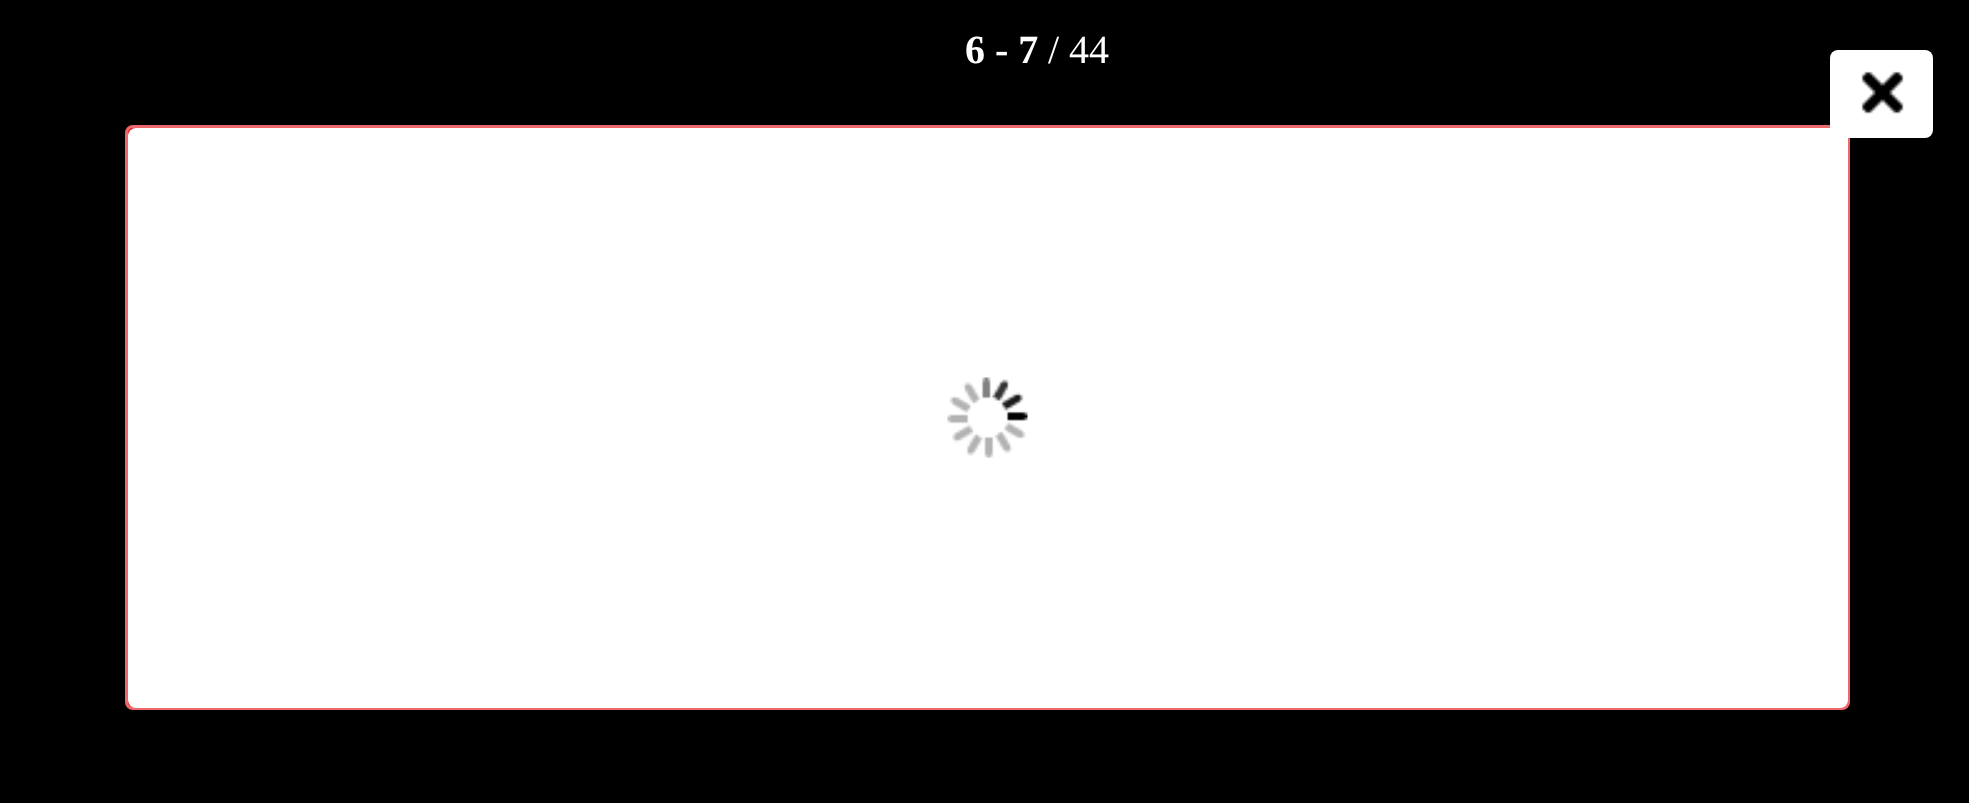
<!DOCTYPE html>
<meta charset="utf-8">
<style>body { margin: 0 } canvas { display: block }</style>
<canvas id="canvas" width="1969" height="803"></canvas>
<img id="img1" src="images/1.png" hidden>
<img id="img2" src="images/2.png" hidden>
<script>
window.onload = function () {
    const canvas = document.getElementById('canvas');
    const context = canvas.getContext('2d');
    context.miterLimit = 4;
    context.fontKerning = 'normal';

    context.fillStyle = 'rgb(0, 0, 0)';
    context.fillRect(0, 0, 1969, 803);
    context.fillStyle = 'rgb(224, 4, 11)';
    context.beginPath();
    context.roundRect(125, 125, 1725, 585, 8);
    context.fill();
    context.beginPath();
    context.roundRect(126.5, 126.5, 1722, 582, 6.5);
    context.strokeStyle = 'rgba(255, 255, 255, 0.4)';
    context.lineWidth = 3;
    context.stroke();
    context.fillStyle = 'rgb(255, 255, 255)';
    context.beginPath();
    context.roundRect(128, 128, 1720, 580, 8);
    context.fill();
    context.beginPath();
    context.roundRect(1830, 50, 103, 88, 8);
    context.fill();
    context.drawImage(document.getElementById('img1'), 1861, 71, 43, 43);
    context.drawImage(document.getElementById('img2'), 947, 377, 81, 81);
    context.font = 'bold 40px Liberation Serif';
    context.fillText('6 - 7', 965, 63);
    context.font = '40px Liberation Serif';
    context.fillText('/ 44', 1048, 63);
};
</script>
